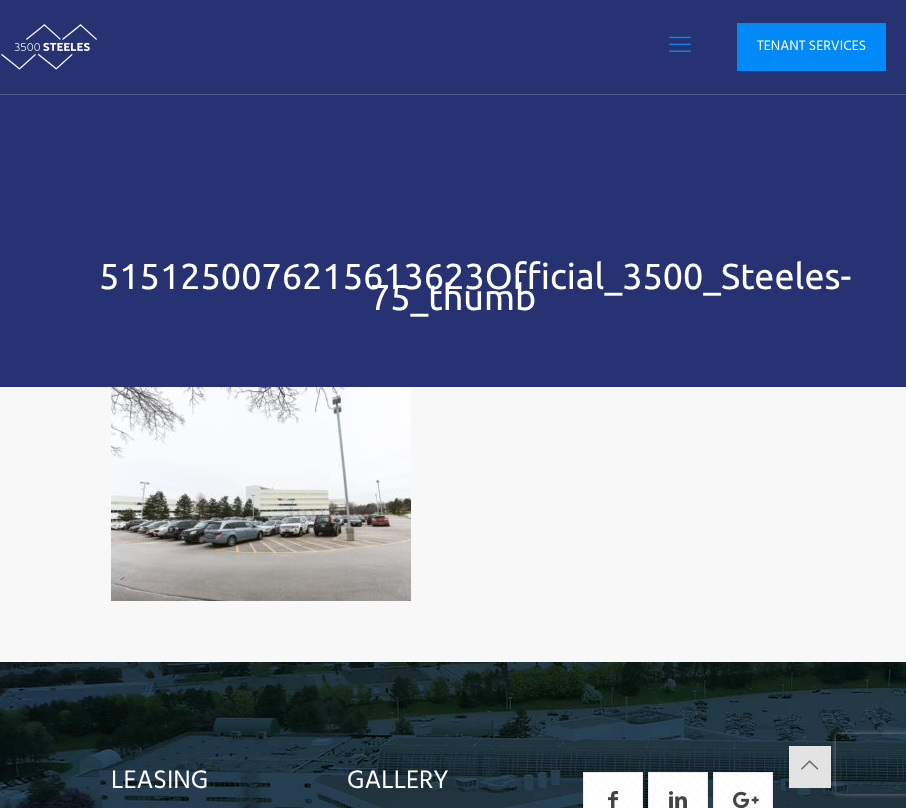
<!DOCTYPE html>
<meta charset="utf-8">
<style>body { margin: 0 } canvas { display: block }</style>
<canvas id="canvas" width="906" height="808"></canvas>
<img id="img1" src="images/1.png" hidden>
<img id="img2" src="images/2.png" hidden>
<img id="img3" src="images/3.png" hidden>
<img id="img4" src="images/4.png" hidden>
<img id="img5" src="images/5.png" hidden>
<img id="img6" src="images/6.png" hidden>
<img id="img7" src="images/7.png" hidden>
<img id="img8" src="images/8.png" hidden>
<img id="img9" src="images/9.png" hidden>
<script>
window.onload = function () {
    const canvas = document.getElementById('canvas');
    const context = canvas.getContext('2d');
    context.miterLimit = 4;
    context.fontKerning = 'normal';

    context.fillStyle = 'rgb(248, 248, 248)';
    context.fillRect(0, 0, 906, 808);
    context.fillStyle = 'rgb(38, 50, 113)';
    context.fillRect(0, 0, 906, 387);
    context.fillStyle = 'rgb(81, 91, 141)';
    context.fillRect(0, 94, 906, 1);
    context.drawImage(document.getElementById('img1'), 1, 24, 96, 46);
    context.drawImage(document.getElementById('img2'), 669, 36, 22, 16);
    context.fillStyle = 'rgb(0, 137, 247)';
    context.fillRect(737, 23, 149, 48);
    context.drawImage(document.getElementById('img3'), 111, 387, 300, 214);
    context.drawImage(document.getElementById('img4'), 0, 662, 906, 146);
    context.fillStyle = 'rgb(255, 255, 255)';
    context.fillRect(583, 772, 60, 36);
    context.drawImage(document.getElementById('img5'), 583, 772, 60, 36);
    context.strokeStyle = 'rgba(0, 0, 0, 0.08)';
    context.strokeRect(583.5, 772.5, 59, 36);
    context.drawImage(document.getElementById('img6'), 608, 791, 10, 17);
    context.fillRect(648, 772, 60, 36);
    context.drawImage(document.getElementById('img5'), 648, 772, 60, 36);
    context.strokeRect(648.5, 772.5, 59, 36);
    context.drawImage(document.getElementById('img7'), 669, 791, 18, 17);
    context.fillRect(713, 772, 60, 36);
    context.drawImage(document.getElementById('img5'), 713, 772, 60, 36);
    context.strokeRect(713.5, 772.5, 59, 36);
    context.drawImage(document.getElementById('img8'), 733, 791, 26, 17);
    context.save();
    context.beginPath();
    context.moveTo(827, 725);
    context.lineTo(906, 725);
    context.lineTo(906, 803);
    context.lineTo(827, 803);
    context.closePath();
    context.moveTo(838, 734);
    context.lineTo(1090, 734);
    context.bezierCurveTo(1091, 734, 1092, 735, 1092, 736);
    context.lineTo(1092, 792);
    context.bezierCurveTo(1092, 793, 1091, 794, 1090, 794);
    context.lineTo(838, 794);
    context.bezierCurveTo(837, 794, 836, 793, 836, 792);
    context.lineTo(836, 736);
    context.bezierCurveTo(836, 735, 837, 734, 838, 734);
    context.closePath();
    context.clip('evenodd');
    context.fillStyle = 'rgb(128, 128, 128)';
    context.filter = 'blur(2.5px)';
    context.beginPath();
    context.roundRect(836, 734, 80, 60, 2);
    context.fill();
    context.filter = 'none';
    context.restore();
    context.fillStyle = 'rgb(227, 227, 227)';
    context.fillRect(789, 746, 42, 42);
    context.drawImage(document.getElementById('img9'), 801, 760, 18, 10);
    context.font = '14px Hind';
    context.fillStyle = 'rgb(255, 255, 255)';
    context.fillText('TENANT SERVICES', 757, 50);
    context.font = '36px Ubuntu';
    context.fillText('5151250076215613623Official_3500_Steeles-', 99, 289);
    context.fillText('75_thumb', 370, 310);
    context.font = '26px Hind';
    context.fillText('LEASING', 111, 788);
    context.fillText('GALLERY', 347, 788);
};
</script>
